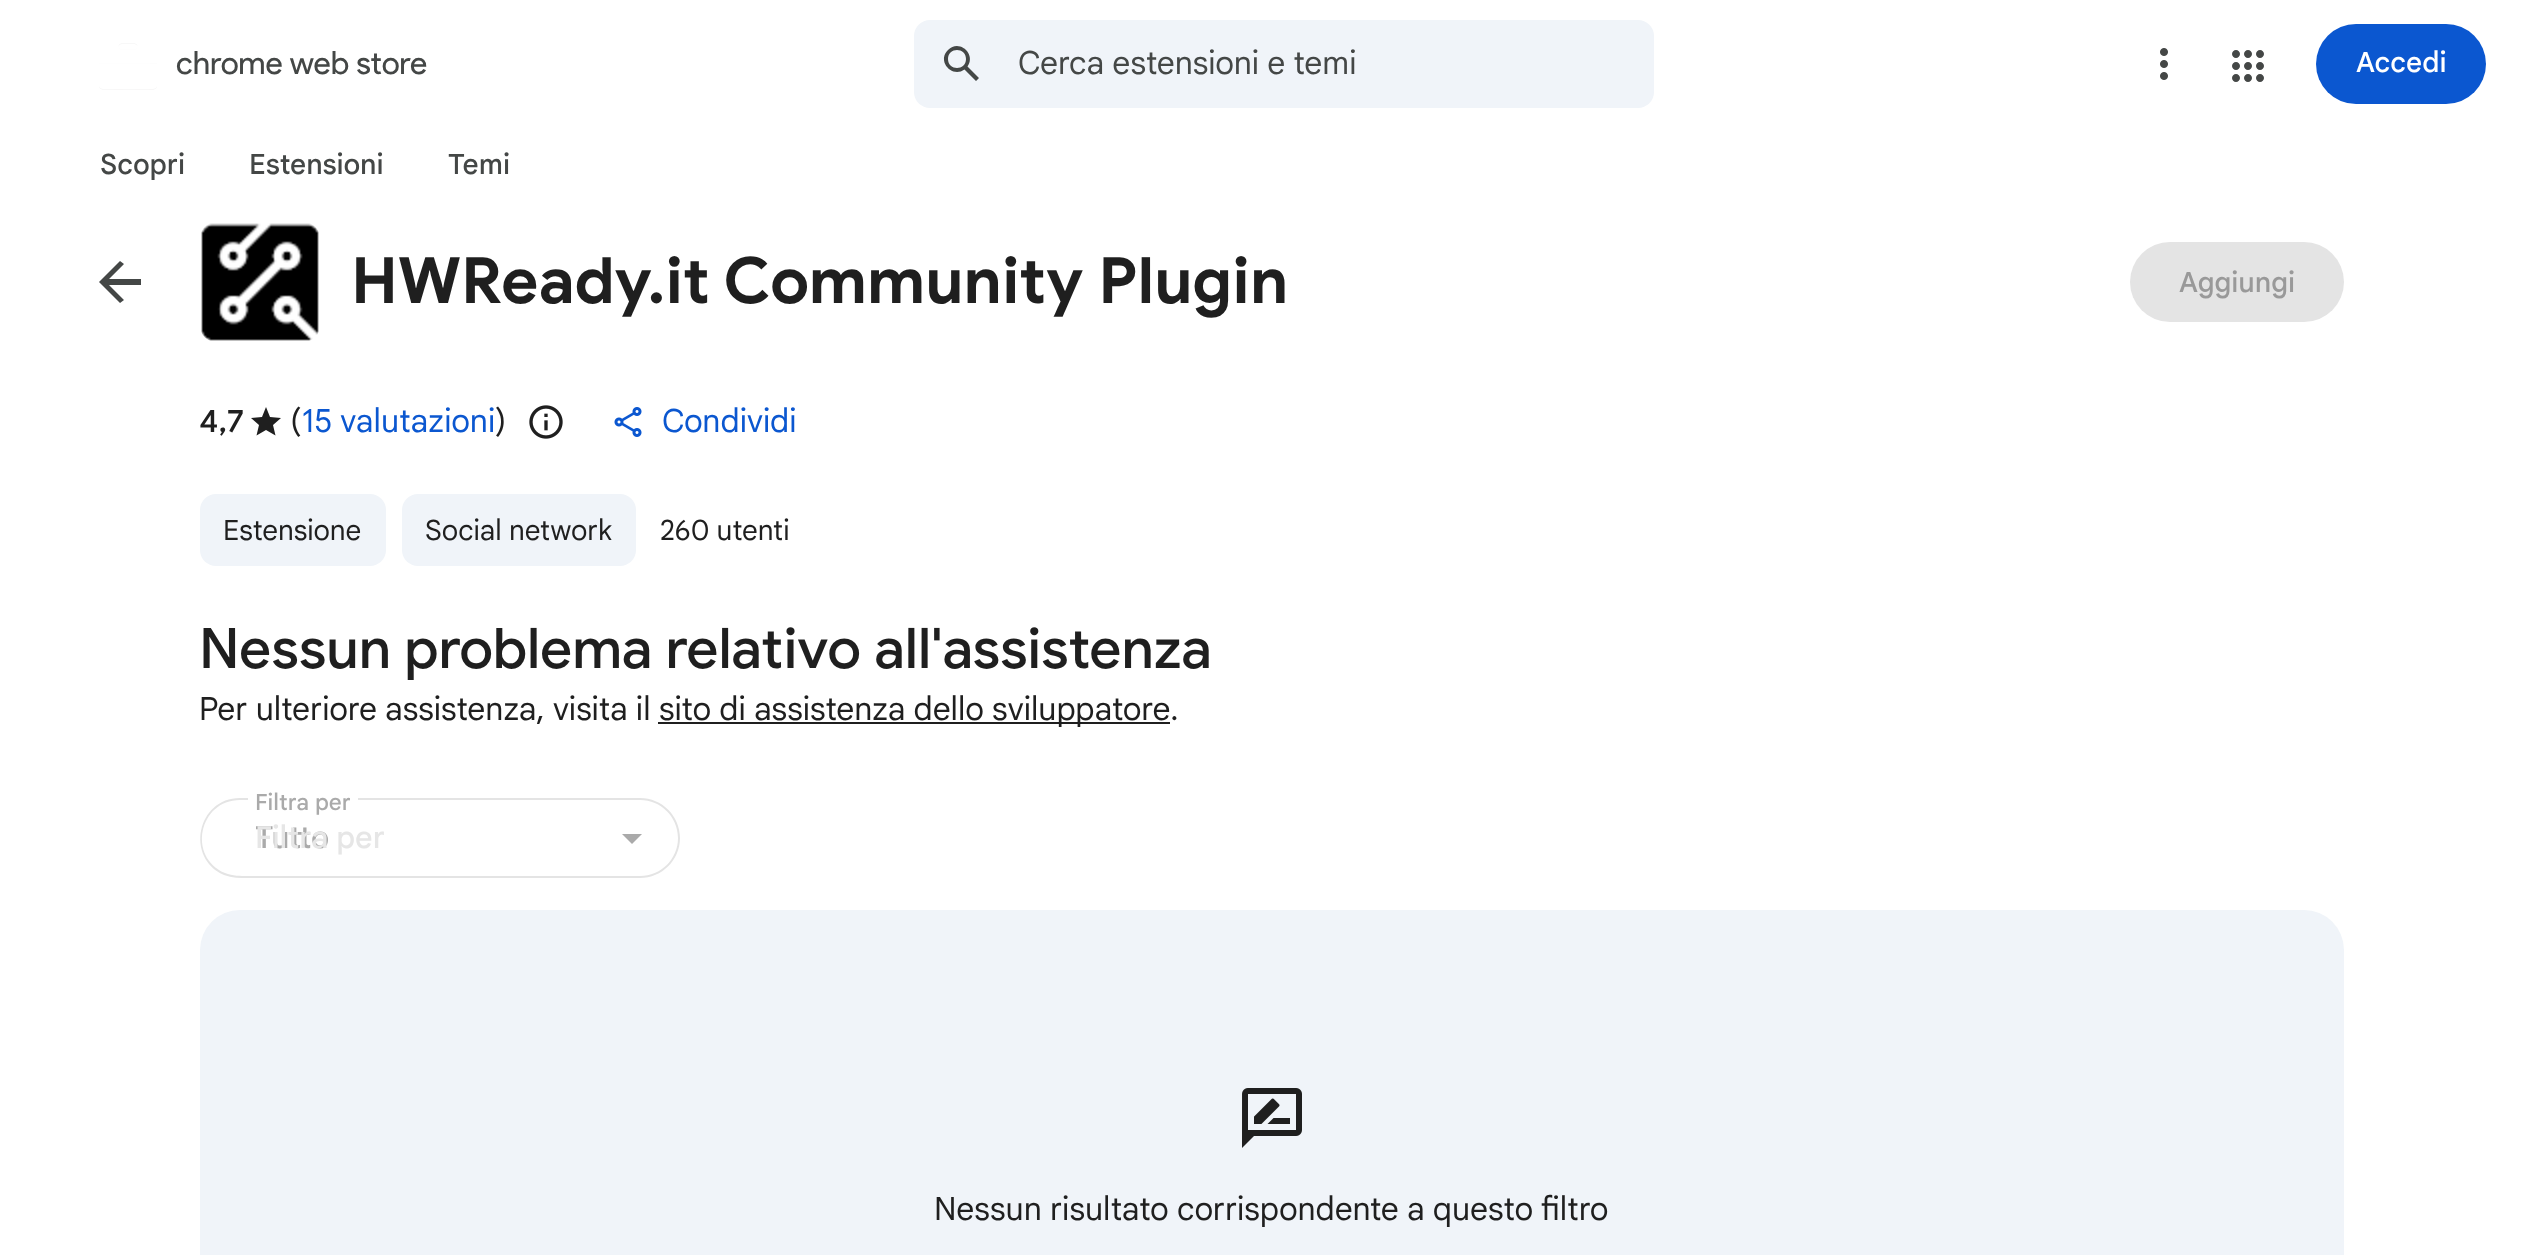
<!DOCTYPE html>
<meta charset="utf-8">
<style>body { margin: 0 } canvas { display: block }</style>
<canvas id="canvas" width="2541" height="1255"></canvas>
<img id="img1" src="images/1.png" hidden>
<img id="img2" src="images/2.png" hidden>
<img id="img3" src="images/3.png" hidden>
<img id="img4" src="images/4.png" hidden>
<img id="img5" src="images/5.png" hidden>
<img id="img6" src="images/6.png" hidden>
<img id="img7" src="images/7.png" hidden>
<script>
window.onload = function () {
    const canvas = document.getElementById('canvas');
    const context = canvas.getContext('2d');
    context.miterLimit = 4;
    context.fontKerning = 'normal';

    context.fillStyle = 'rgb(255, 255, 255)';
    context.fillRect(0, 0, 2541, 1255);
    context.drawImage(document.getElementById('img1'), 99, 43, 58, 47);
    context.fillStyle = 'rgb(240, 244, 249)';
    context.beginPath();
    context.roundRect(914, 20, 740, 88, 16);
    context.fill();
    context.fillStyle = 'rgb(68, 71, 70)';
    context.beginPath();
    context.moveTo(979, 78);
    context.lineTo(967.5, 66.5);
    context.bezierCurveTo(976.5, 54, 959, 38.5, 948, 50);
    context.bezierCurveTo(936.5, 61, 952, 78.5, 964.5, 69.5);
    context.lineTo(976, 81);
    context.closePath();
    context.moveTo(948, 59);
    context.bezierCurveTo(948, 47, 966, 47, 966, 59);
    context.bezierCurveTo(966, 71, 948, 71, 948, 59);
    context.closePath();
    context.fill();
    context.drawImage(document.getElementById('img2'), 2160, 48, 8, 32);
    context.drawImage(document.getElementById('img3'), 2232, 50, 32, 32);
    context.fillStyle = 'rgb(11, 87, 208)';
    context.beginPath();
    context.roundRect(2316, 24, 170, 80, 40);
    context.fill();
    context.fillStyle = 'rgb(68, 71, 70)';
    context.beginPath();
    context.moveTo(141, 279);
    context.lineTo(109, 279);
    context.lineTo(124, 264);
    context.lineTo(120, 261);
    context.lineTo(99, 282);
    context.lineTo(120, 303);
    context.lineTo(124, 300);
    context.lineTo(109, 285);
    context.lineTo(141, 285);
    context.closePath();
    context.fill();
    context.drawImage(document.getElementById('img4'), 201, 223, 118, 118);
    context.fillStyle = 'rgb(228, 228, 228)';
    context.beginPath();
    context.roundRect(2130, 242, 214, 80, 40);
    context.fill();
    context.fillStyle = 'rgb(31, 31, 31)';
    context.beginPath();
    context.moveTo(266, 430);
    context.lineTo(275.5, 435.5);
    context.lineTo(273, 425);
    context.lineTo(281, 418);
    context.lineTo(270, 417);
    context.lineTo(266, 407);
    context.lineTo(262, 417);
    context.lineTo(251, 418);
    context.lineTo(259, 425);
    context.lineTo(256.5, 435.5);
    context.closePath();
    context.fill();
    context.drawImage(document.getElementById('img5'), 529, 405, 34, 34);
    context.drawImage(document.getElementById('img6'), 614, 407, 28, 30);
    context.fillStyle = 'rgb(240, 244, 249)';
    context.beginPath();
    context.roundRect(200, 494, 186, 72, 16);
    context.fill();
    context.beginPath();
    context.roundRect(402, 494, 234, 72, 16);
    context.fill();
    context.fillStyle = 'rgb(31, 31, 31)';
    context.fillRect(658, 722, 512, 2);
    context.fillStyle = 'rgb(228, 228, 228)';
    context.beginPath();
    context.moveTo(240, 798);
    context.lineTo(248, 798);
    context.lineTo(248, 878);
    context.bezierCurveTo(240, 878, 232, 878, 224, 875);
    context.bezierCurveTo(185, 858, 197, 798, 240, 798);
    context.closePath();
    context.moveTo(240, 800);
    context.lineTo(248, 800);
    context.lineTo(248, 876);
    context.bezierCurveTo(240, 876, 233, 876, 225, 873);
    context.bezierCurveTo(187, 857, 199, 800, 240, 800);
    context.closePath();
    context.fill('evenodd');
    context.fillRect(248, 876, 110, 2);
    context.beginPath();
    context.moveTo(358, 798);
    context.lineTo(640, 798);
    context.bezierCurveTo(662, 798, 680, 816, 680, 838);
    context.bezierCurveTo(680, 860, 662, 878, 640, 878);
    context.lineTo(358, 878);
    context.closePath();
    context.moveTo(358, 800);
    context.lineTo(640, 800);
    context.bezierCurveTo(661, 800, 678, 817, 678, 838);
    context.bezierCurveTo(678, 859, 661, 876, 640, 876);
    context.lineTo(358, 876);
    context.closePath();
    context.fill('evenodd');
    context.fillStyle = 'rgb(170, 170, 170)';
    context.beginPath();
    context.moveTo(622, 834);
    context.lineTo(632, 844);
    context.lineTo(642, 834);
    context.closePath();
    context.fill('evenodd');
    context.fillStyle = 'rgb(240, 244, 249)';
    context.beginPath();
    context.roundRect(200, 910, 2144, 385, 40);
    context.fill();
    context.drawImage(document.getElementById('img7'), 1242, 1088, 60, 60);
    context.font = '32px Product Sans';
    context.fillStyle = 'rgb(68, 71, 70)';
    context.fillText('chrome web store', 176, 74);
    context.font = '32px Google Sans';
    context.fillText('Cerca estensioni e temi', 1018, 74);
    context.font = '500 28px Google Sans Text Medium';
    context.fillStyle = 'rgb(255, 255, 255)';
    context.fillText('Accedi', 2356, 72);
    context.fillStyle = 'rgb(68, 71, 70)';
    context.fillText('Scopri', 100, 174);
    context.fillText('Estensioni', 249, 174);
    context.fillText('Temi', 448, 174);
    context.font = 'bold 64px Google Sans';
    context.fillStyle = 'rgb(31, 31, 31)';
    context.fillText('HWReady.it Community Plugin', 351, 303);
    context.font = '500 28px Google Sans Text Medium';
    context.fillStyle = 'rgb(153, 153, 153)';
    context.fillText('Aggiungi', 2179, 292);
    context.font = '500 32px Google Sans';
    context.fillStyle = 'rgb(31, 31, 31)';
    context.fillText('4,7', 199, 432);
    context.font = '32px Google Sans';
    context.fillText('(', 290, 432);
    context.fillStyle = 'rgb(11, 87, 208)';
    context.fillText('15 valutazioni', 302, 432);
    context.fillStyle = 'rgb(31, 31, 31)';
    context.fillText(')', 495, 432);
    context.font = '32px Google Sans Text';
    context.fillStyle = 'rgb(11, 87, 208)';
    context.fillText('Condividi', 662, 432);
    context.font = '28px Google Sans';
    context.fillStyle = 'rgb(31, 31, 31)';
    context.fillText('Estensione', 223, 540);
    context.fillText('Social network', 425, 540);
    context.fillText('260 utenti', 660, 540);
    context.font = '500 56px Google Sans';
    context.fillText('Nessun problema relativo all\'assistenza', 199, 668);
    context.font = '32px Google Sans';
    context.fillText('Per ulteriore assistenza, visita il', 199, 720);
    context.fillText('sito di assistenza dello sviluppatore.', 659, 720);
    context.font = '500 22.5px "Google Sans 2"';
    context.fillStyle = 'rgb(170, 170, 170)';
    context.fillText('Filtra per', 255, 810);
    context.save();
    context.beginPath();
    context.rect(256, 814, 328, 48);
    context.clip();
    context.font = '500 30.5px "Google Sans 2"';
    context.fillText('Tutto', 255, 848);
    context.restore();
    context.font = '500 30.5px "Google Sans 2"';
    context.fillStyle = 'rgb(230, 230, 230)';
    context.fillText('Filtra per', 255, 848);
    context.font = '32px Google Sans';
    context.fillStyle = 'rgb(31, 31, 31)';
    context.fillText('Nessun risultato corrispondente a questo filtro', 934, 1220);
};
</script>
